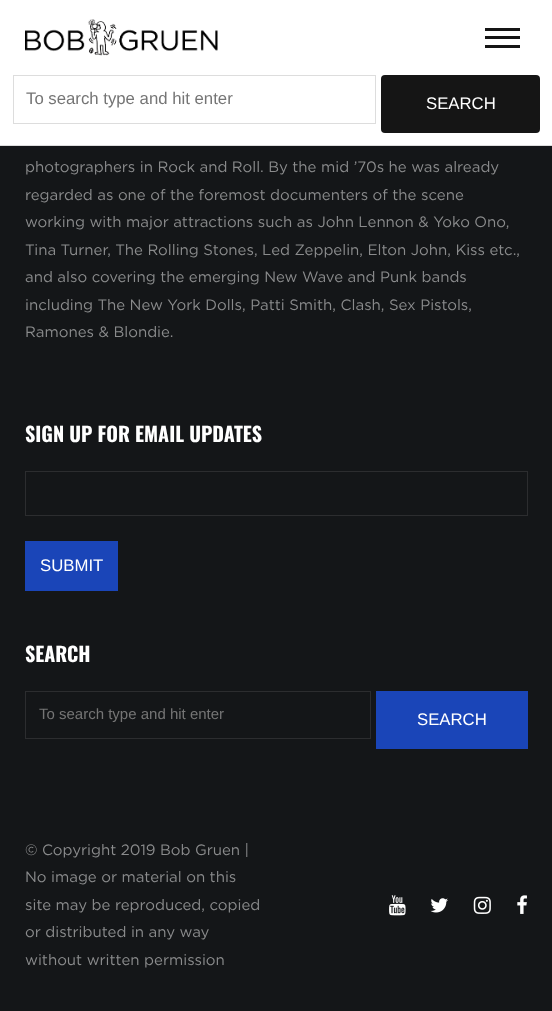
<!DOCTYPE html>
<meta charset="utf-8">
<style>body { margin: 0 } canvas { display: block }</style>
<canvas id="canvas" width="552" height="1011"></canvas>
<img id="img1" src="images/1.png" hidden>
<img id="img2" src="images/2.png" hidden>
<img id="img3" src="images/3.png" hidden>
<img id="img4" src="images/4.png" hidden>
<img id="img5" src="images/5.png" hidden>
<script>
window.onload = function () {
    const canvas = document.getElementById('canvas');
    const context = canvas.getContext('2d');
    context.miterLimit = 4;
    context.fontKerning = 'normal';

    context.fillStyle = 'rgb(20, 22, 24)';
    context.fillRect(0, 0, 552, 1011);
    context.fillStyle = 'rgb(255, 255, 255)';
    context.fillRect(0, 0, 552, 145);
    context.fillStyle = 'rgb(221, 221, 221)';
    context.fillRect(0, 145, 552, 1);
    context.drawImage(document.getElementById('img1'), 25, 19, 193, 37);
    context.fillStyle = 'rgb(21, 21, 21)';
    context.fillRect(485, 36, 35, 3);
    context.fillRect(485, 28, 35, 3);
    context.fillRect(485, 45, 35, 3);
    context.strokeStyle = 'rgb(221, 221, 221)';
    context.strokeRect(13.5, 75.5, 362, 48);
    context.beginPath();
    context.roundRect(381, 75, 159, 58, 4);
    context.fill();
    context.strokeStyle = 'rgb(44, 45, 47)';
    context.strokeRect(25.5, 471.5, 502, 44);
    context.fillStyle = 'rgb(26, 69, 184)';
    context.fillRect(25, 541, 93, 50);
    context.strokeRect(25.5, 691.5, 345, 47);
    context.fillRect(376, 691, 152, 58);
    context.drawImage(document.getElementById('img2'), 389, 895, 17, 21);
    context.drawImage(document.getElementById('img3'), 430, 898, 18, 15);
    context.drawImage(document.getElementById('img4'), 473, 896, 18, 18);
    context.drawImage(document.getElementById('img5'), 517, 895, 10, 19);
    context.font = '16.75px Liberation Sans';
    context.fillStyle = 'rgb(117, 117, 117)';
    context.fillText('To search type and hit enter', 26, 104);
    context.fillStyle = 'rgb(255, 255, 255)';
    context.fillText('SEARCH', 426, 109);
    context.font = '15px Gotham';
    context.fillStyle = 'rgb(138, 139, 140)';
    context.fillText('photographers in Rock and Roll. By the mid ’70s he was already', 25, 172);
    context.fillText('regarded as one of the foremost documenters of the scene', 25, 200);
    context.fillText('working with major attractions such as John Lennon & Yoko Ono,', 25, 227);
    context.fillText('Tina Turner, The Rolling Stones, Led Zeppelin, Elton John, Kiss etc.,', 25, 255);
    context.fillText('and also covering the emerging New Wave and Punk bands', 25, 282);
    context.fillText('including The New York Dolls, Patti Smith, Clash, Sex Pistols,', 25, 310);
    context.fillText('Ramones & Blondie.', 25, 337);
    context.font = 'bold 20px Oswald';
    context.fillStyle = 'rgb(255, 255, 255)';
    context.fillText('SIGN UP FOR EMAIL UPDATES', 25, 442);
    context.font = '16.75px Liberation Sans';
    context.fillText('SUBMIT', 40, 571);
    context.font = 'bold 20px Oswald';
    context.fillText('SEARCH', 25, 662);
    context.font = '15px Liberation Sans';
    context.fillStyle = 'rgb(117, 117, 117)';
    context.fillText('To search type and hit enter', 39, 719);
    context.font = '16.75px Liberation Sans';
    context.fillStyle = 'rgb(255, 255, 255)';
    context.fillText('SEARCH', 417, 725);
    context.font = '15px Gotham';
    context.fillStyle = 'rgb(138, 139, 140)';
    context.fillText('© Copyright 2019 Bob Gruen |', 25, 855);
    context.fillText('No image or material on this', 25, 882);
    context.fillText('site may be reproduced, copied', 25, 910);
    context.fillText('or distributed in any way', 25, 937);
    context.fillText('without written permission', 25, 965);
};
</script>
